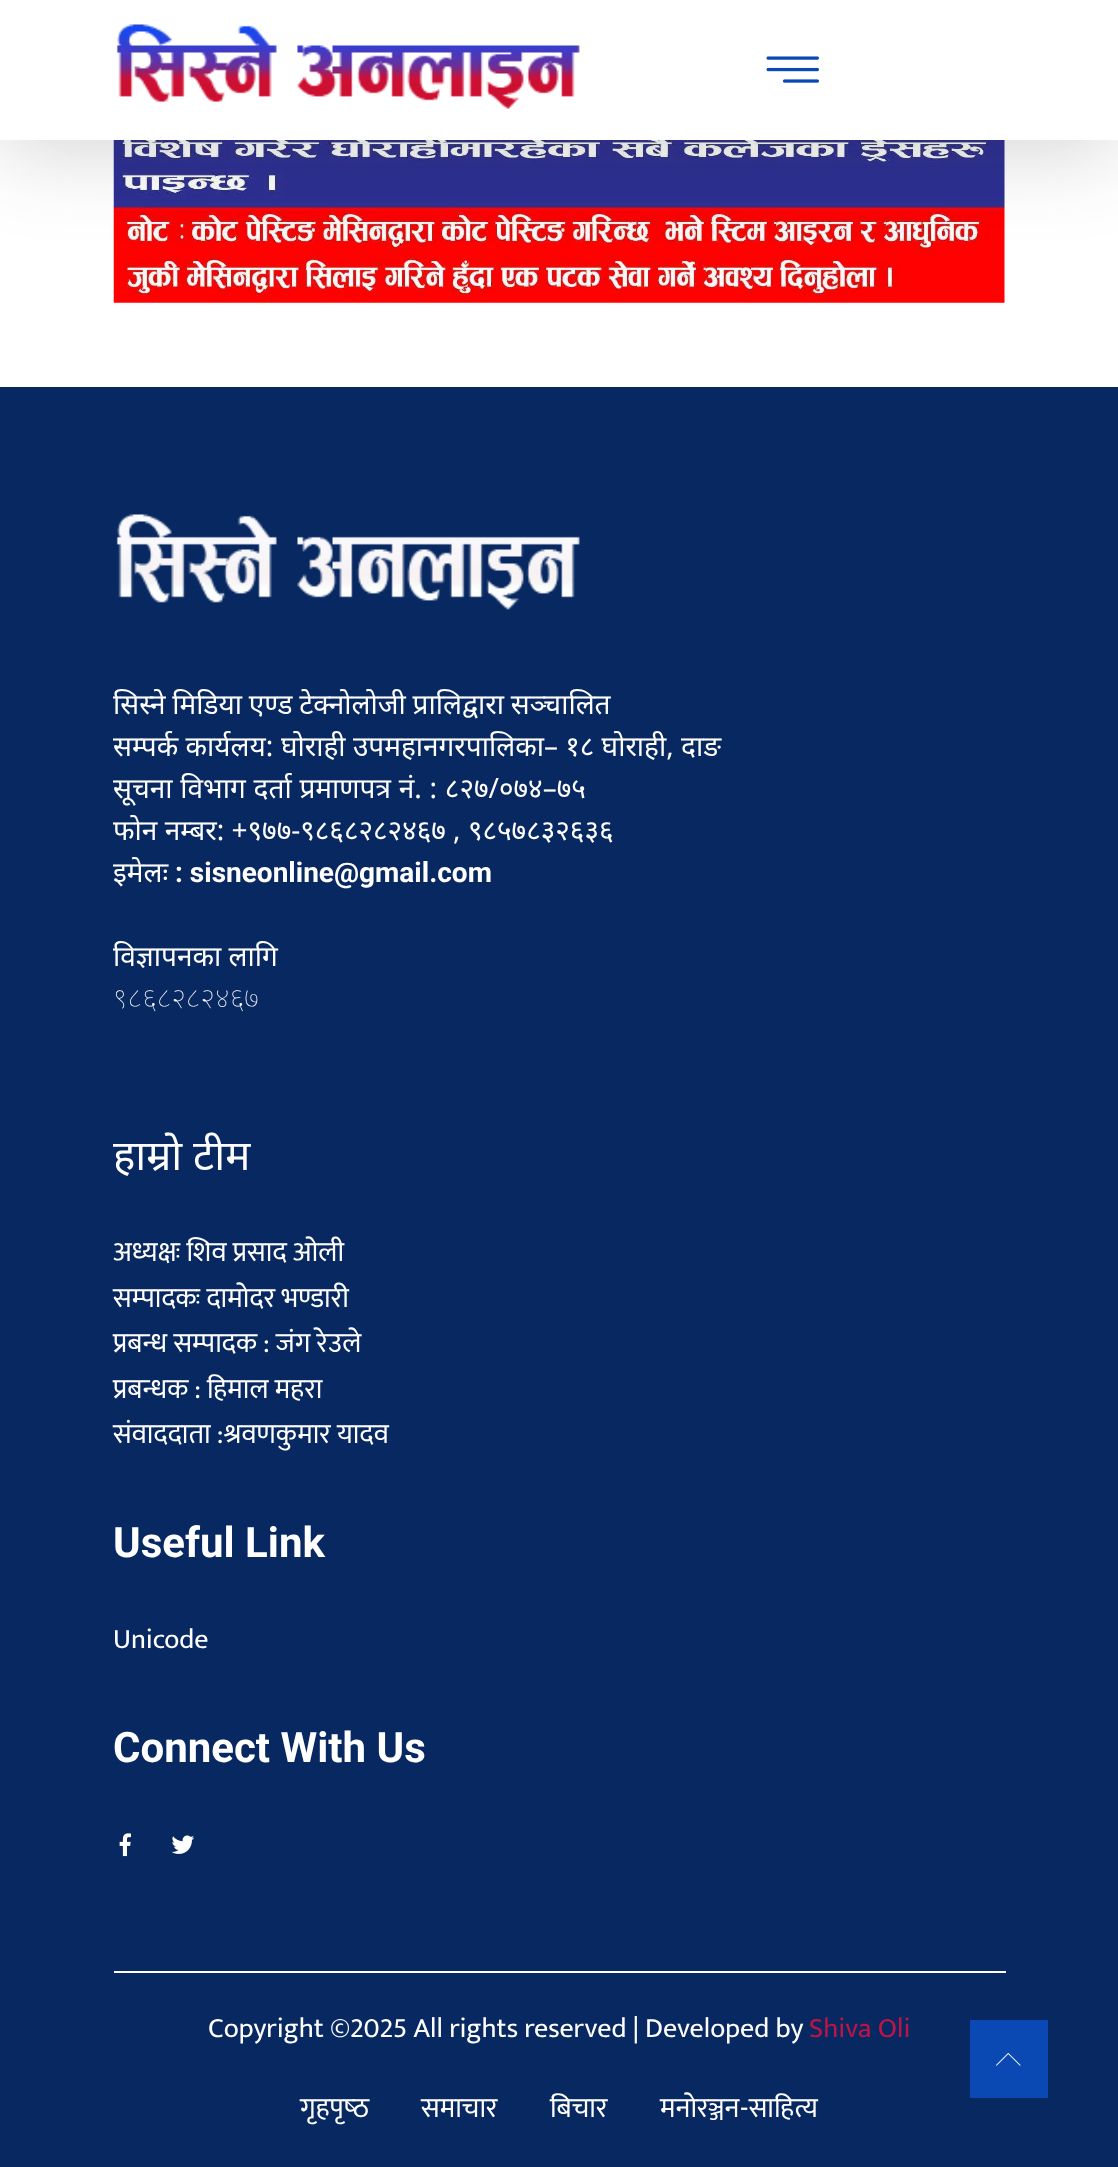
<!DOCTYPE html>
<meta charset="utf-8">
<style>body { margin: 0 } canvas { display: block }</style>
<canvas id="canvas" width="1118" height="2167"></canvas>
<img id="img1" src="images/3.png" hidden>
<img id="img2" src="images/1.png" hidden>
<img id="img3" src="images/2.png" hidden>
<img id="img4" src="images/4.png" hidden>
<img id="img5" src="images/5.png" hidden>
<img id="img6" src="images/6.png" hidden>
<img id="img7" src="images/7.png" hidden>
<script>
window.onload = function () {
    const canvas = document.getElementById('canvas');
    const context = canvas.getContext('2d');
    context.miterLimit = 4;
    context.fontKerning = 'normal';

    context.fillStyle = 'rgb(255, 255, 255)';
    context.fillRect(0, 0, 1118, 2167);
    context.drawImage(document.getElementById('img1'), 113, 140, 892, 163);
    context.fillStyle = 'rgba(33, 33, 33, 0.2)';
    context.filter = 'blur(44px)';
    context.beginPath();
    context.rect(0, 9, 1118, 140);
    context.fill();
    context.filter = 'none';
    context.fillStyle = 'rgb(255, 255, 255)';
    context.fillRect(0, 0, 1118, 140);
    context.drawImage(document.getElementById('img2'), 116, 24, 464, 85);
    context.drawImage(document.getElementById('img3'), 766, 56, 53, 27);
    context.fillStyle = 'rgb(8, 40, 97)';
    context.fillRect(0, 387, 1118, 1780);
    context.drawImage(document.getElementById('img4'), 116, 514, 464, 96);
    context.drawImage(document.getElementById('img5'), 119, 1833, 12, 24);
    context.drawImage(document.getElementById('img6'), 171, 1835, 24, 19);
    context.fillStyle = 'rgb(255, 255, 255)';
    context.fillRect(114, 1971, 892, 2);
    context.fillStyle = 'rgb(10, 72, 179)';
    context.fillRect(970, 2020, 78, 78);
    context.drawImage(document.getElementById('img7'), 996, 2053, 25, 13);
    context.wordSpacing = '-0.5px';
    context.font = '28px Noto Sans';
    context.fillStyle = 'rgb(255, 255, 255)';
    context.fillText('सिस्ने मिडिया एण्ड टेक्नोलोजी प्रालिद्वारा सञ्चालित', 113, 714);
    context.wordSpacing = '0px';
    context.fillText('सम्पर्क कार्यलय:', 113, 756);
    context.fillText('घोराही उपमहानगरपालिका– १८ घोराही, दाङ', 281, 756);
    context.wordSpacing = '0.5px';
    context.fillText('सूचना विभाग दर्ता प्रमाणपत्र नं. : ८२७/०७४–७५', 113, 798);
    context.wordSpacing = '0px';
    context.fillText('फोन नम्बर: +९७७-९८६८२८२४६७ , ९८५७८३२६३६', 113, 840);
    context.fillText('इमेलः', 113, 882);
    context.font = 'bold 28px Roboto';
    context.fillText(': sisneonline@gmail.com', 175, 882);
    context.font = '28px Noto Sans';
    context.fillText('विज्ञापनका लागि', 113, 966);
    context.font = '100 28px Noto Sans';
    context.fillText('९८६८२८२४६७', 113, 1008);
    context.font = '42px Noto Sans';
    context.fillText('हाम्रो टीम', 113, 1170);
    context.font = '28px Mukta';
    context.fillText('अध्यक्षः शिव प्रसाद ओली', 113, 1261);
    context.fillText('सम्पादकः दामोदर भण्डारी', 113, 1307);
    context.fillText('प्रबन्ध सम्पादक : जंग रेउले', 113, 1352);
    context.fillText('प्रबन्धक : हिमाल महरा', 113, 1398);
    context.fillText('संवाददाता :श्रवणकुमार यादव', 113, 1443);
    context.font = 'bold 42px Roboto';
    context.fillText('Useful Link', 113, 1557);
    context.font = '28px Mukta';
    context.fillText('Unicode', 113, 1648);
    context.font = 'bold 42px Roboto';
    context.fillText('Connect With Us', 113, 1762);
    context.font = '28px Mukta';
    context.fillText('Copyright ©2025 All rights reserved | Developed by', 208, 2037);
    context.fillStyle = 'rgb(186, 21, 71)';
    context.fillText('Shiva Oli', 809, 2037);
    context.fillStyle = 'rgb(255, 255, 255)';
    context.fillText('गृहपृष्‍ठ', 300, 2117);
    context.fillText('समाचार', 421, 2117);
    context.fillText('बिचार', 550, 2117);
    context.fillText('मनोरञ्जन-साहित्य', 660, 2117);
};
</script>
